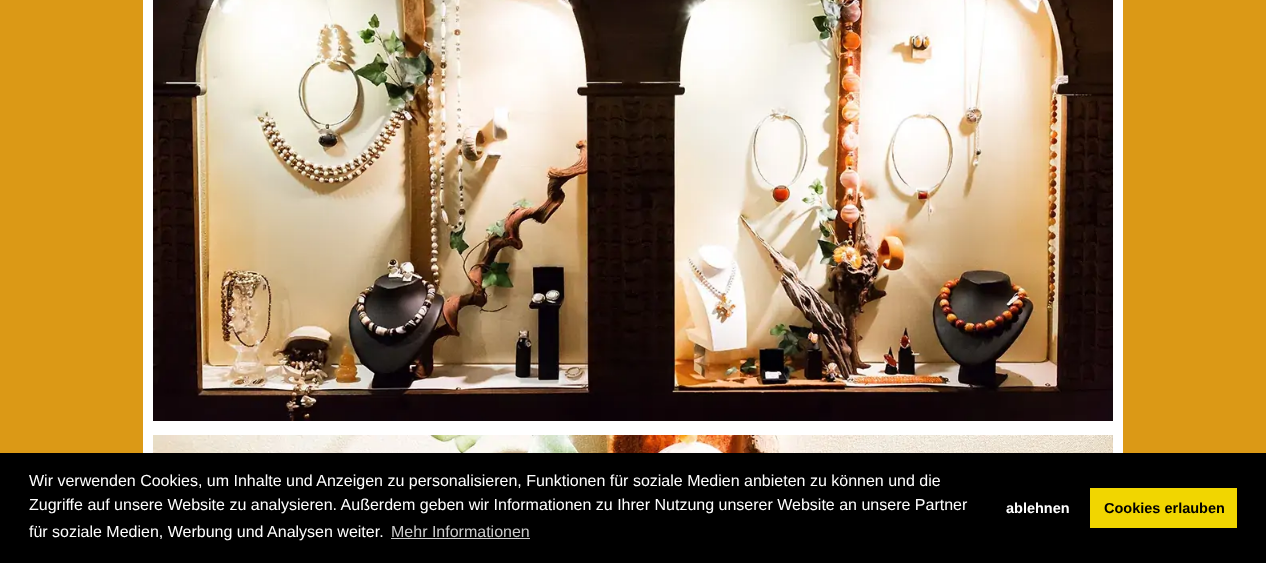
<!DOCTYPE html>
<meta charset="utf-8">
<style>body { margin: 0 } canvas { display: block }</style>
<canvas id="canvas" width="1266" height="563"></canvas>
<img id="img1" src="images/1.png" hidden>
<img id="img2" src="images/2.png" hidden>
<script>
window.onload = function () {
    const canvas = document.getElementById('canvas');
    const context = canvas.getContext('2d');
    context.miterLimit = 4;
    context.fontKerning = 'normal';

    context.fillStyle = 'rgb(219, 153, 22)';
    context.fillRect(0, 0, 1266, 563);
    context.fillStyle = 'rgb(255, 255, 255)';
    context.fillRect(143, 0, 980, 453);
    context.drawImage(document.getElementById('img1'), 153, 0, 960, 421);
    context.drawImage(document.getElementById('img2'), 153, 435, 960, 18);
    context.fillStyle = 'rgb(0, 0, 0)';
    context.fillRect(0, 453, 1266, 110);
    context.fillStyle = 'rgb(204, 204, 204)';
    context.fillRect(391, 538, 139, 1);
    context.fillStyle = 'rgb(241, 214, 0)';
    context.fillRect(1090, 488, 147, 40);
    context.font = '16px Liberation Sans';
    context.fillStyle = 'rgb(255, 255, 255)';
    context.fillText('Wir verwenden Cookies, um Inhalte und Anzeigen zu personalisieren, Funktionen für soziale Medien anbieten zu können und die', 29, 486);
    context.fillText('Zugriffe auf unsere Website zu analysieren. Außerdem geben wir Informationen zu Ihrer Nutzung unserer Website an unsere Partner', 29, 510);
    context.fillText('für soziale Medien, Werbung und Analysen weiter.', 29, 537);
    context.fillStyle = 'rgb(204, 204, 204)';
    context.fillText('Mehr Informationen', 391, 537);
    context.font = 'bold 14.5px Liberation Sans';
    context.fillStyle = 'rgb(255, 255, 255)';
    context.fillText('ablehnen', 1006, 513);
    context.fillStyle = 'rgb(0, 0, 0)';
    context.fillText('Cookies erlauben', 1104, 513);
};
</script>
